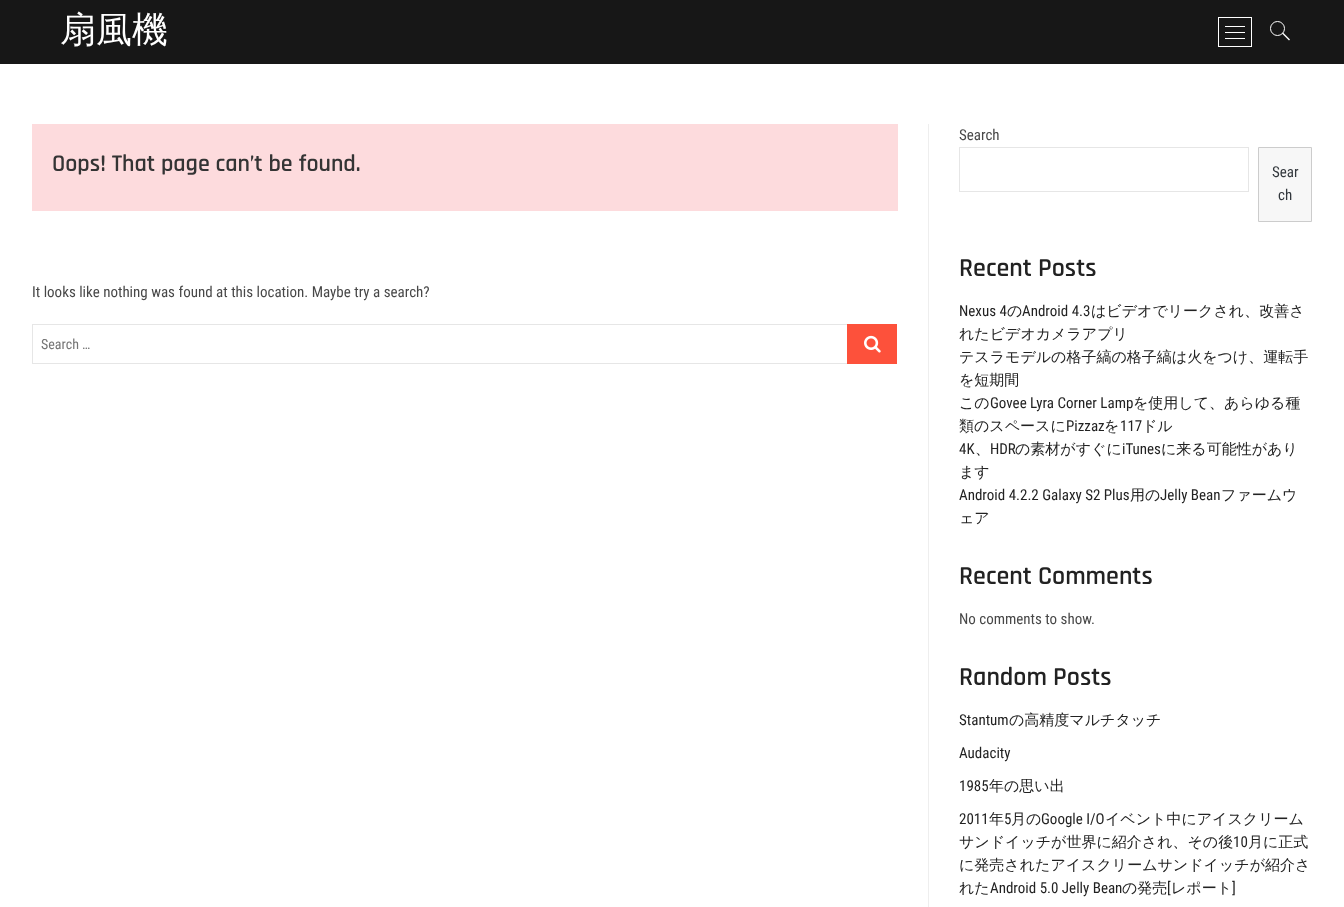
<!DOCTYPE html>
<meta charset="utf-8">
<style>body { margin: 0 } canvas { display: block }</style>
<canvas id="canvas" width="1344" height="907"></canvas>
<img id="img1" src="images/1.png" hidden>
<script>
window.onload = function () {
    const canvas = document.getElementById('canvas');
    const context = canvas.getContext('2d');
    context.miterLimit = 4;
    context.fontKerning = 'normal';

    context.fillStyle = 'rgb(255, 255, 255)';
    context.fillRect(0, 0, 1344, 907);
    context.fillStyle = 'rgb(23, 23, 23)';
    context.fillRect(0, 0, 1344, 64);
    context.strokeStyle = 'rgb(255, 255, 255)';
    context.strokeRect(1218.5, 17.5, 33, 29);
    context.fillStyle = 'rgb(255, 255, 255)';
    context.fillRect(1225, 32, 20, 1);
    context.fillRect(1225, 26, 20, 1);
    context.fillRect(1225, 38, 20, 1);
    context.beginPath();
    context.arc(1277.5, 28.5, 7, 0, 2 * Math.PI);
    context.stroke();
    context.beginPath();
    context.moveTo(1282, 33.5);
    context.lineTo(1283, 32.5);
    context.lineTo(1290, 39.5);
    context.lineTo(1289, 40.5);
    context.closePath();
    context.fill();
    context.fillStyle = 'rgb(253, 219, 221)';
    context.fillRect(32, 124, 866, 87);
    context.strokeStyle = 'rgb(230, 230, 230)';
    context.strokeRect(32.5, 324.5, 815, 39);
    context.fillStyle = 'rgb(253, 81, 59)';
    context.fillRect(847, 324, 50, 40);
    context.drawImage(document.getElementById('img1'), 864, 335, 17, 18);
    context.fillStyle = 'rgb(238, 238, 238)';
    context.fillRect(928, 124, 1, 783);
    context.strokeRect(959.5, 147.5, 289, 44);
    context.fillStyle = 'rgb(247, 247, 247)';
    context.beginPath();
    context.rect(1258.5, 147.5, 53, 74);
    context.fill();
    context.strokeStyle = 'rgb(204, 204, 204)';
    context.stroke();
    context.font = '500 36px WenQuanYi Zen Hei';
    context.fillStyle = 'rgb(255, 255, 255)';
    context.fillText('扇風機', 60, 42);
    context.font = '600 24px Rajdhani';
    context.fillStyle = 'rgb(52, 52, 52)';
    context.fillText('Oops! That page can’t be found.', 52, 171);
    context.font = '15px Roboto Condensed';
    context.fillStyle = 'rgb(72, 72, 72)';
    context.fillText('It looks like nothing was found at this location. Maybe try a search?', 32, 297);
    context.font = '14px Roboto Condensed';
    context.fillStyle = 'rgb(117, 117, 117)';
    context.fillText('Search …', 41, 349);
    context.font = '15px Roboto Condensed';
    context.fillStyle = 'rgb(72, 72, 72)';
    context.fillText('Search', 959, 140);
    context.fillStyle = 'rgb(50, 55, 60)';
    context.fillText('Sear', 1272, 177);
    context.fillText('ch', 1278, 200);
    context.font = '600 26px Rajdhani';
    context.fillStyle = 'rgb(34, 34, 34)';
    context.fillText('Recent Posts', 959, 276);
    context.font = '15px Roboto Condensed';
    context.fillText('Nexus 4', 959, 316);
    context.font = '500 15px WenQuanYi Zen Hei';
    context.fillText('の', 1007, 316);
    context.font = '15px Roboto Condensed';
    context.fillText('Android 4.3', 1022, 316);
    context.font = '500 15px WenQuanYi Zen Hei';
    context.fillText('はビデオでリークされ、改善さ', 1091, 316);
    context.fillText('れたビデオカメラアプリ', 959, 339);
    context.fillText('テスラモデルの格子縞の格子縞は火をつけ、運転手', 959, 362);
    context.fillText('を短期間', 959, 385);
    context.fillText('この', 959, 408);
    context.font = '15px Roboto Condensed';
    context.fillText('Govee Lyra Corner Lamp', 990, 408);
    context.font = '500 15px WenQuanYi Zen Hei';
    context.fillText('を使用して、あらゆる種', 1133, 408);
    context.fillText('類のスペースに', 959, 431);
    context.font = '15px Roboto Condensed';
    context.fillText('Pizzaz', 1066, 431);
    context.font = '500 15px WenQuanYi Zen Hei';
    context.fillText('を', 1104, 431);
    context.font = '15px Roboto Condensed';
    context.fillText('117', 1120, 431);
    context.font = '500 15px WenQuanYi Zen Hei';
    context.fillText('ドル', 1142, 431);
    context.font = '15px Roboto Condensed';
    context.fillText('4K', 959, 454);
    context.font = '500 15px WenQuanYi Zen Hei';
    context.fillText('、', 975, 454);
    context.font = '15px Roboto Condensed';
    context.fillText('HDR', 990, 454);
    context.font = '500 15px WenQuanYi Zen Hei';
    context.fillText('の素材がすぐに', 1015, 454);
    context.font = '15px Roboto Condensed';
    context.fillText('iTunes', 1122, 454);
    context.font = '500 15px WenQuanYi Zen Hei';
    context.fillText('に来る可能性があり', 1161, 454);
    context.fillText('ます', 959, 477);
    context.font = '15px Roboto Condensed';
    context.fillText('Android 4.2.2 Galaxy S2 Plus', 959, 500);
    context.font = '500 15px WenQuanYi Zen Hei';
    context.fillText('用の', 1130, 500);
    context.font = '15px Roboto Condensed';
    context.fillText('Jelly Bean', 1160, 500);
    context.font = '500 15px WenQuanYi Zen Hei';
    context.fillText('ファームウ', 1221, 500);
    context.fillText('ェア', 959, 523);
    context.font = '600 26px Rajdhani';
    context.fillText('Recent Comments', 959, 584);
    context.font = '15px Roboto Condensed';
    context.fillStyle = 'rgb(72, 72, 72)';
    context.fillText('No comments to show.', 959, 624);
    context.font = '600 26px Rajdhani';
    context.fillStyle = 'rgb(34, 34, 34)';
    context.fillText('Random Posts', 959, 685);
    context.font = '15px Roboto Condensed';
    context.fillText('Stantum', 959, 725);
    context.font = '500 15px WenQuanYi Zen Hei';
    context.fillText('の高精度マルチタッチ', 1009, 725);
    context.font = '15px Roboto Condensed';
    context.fillText('Audacity', 959, 758);
    context.fillText('1985', 959, 791);
    context.font = '500 15px WenQuanYi Zen Hei';
    context.fillText('年の思い出', 989, 791);
    context.font = '15px Roboto Condensed';
    context.fillText('2011', 959, 824);
    context.font = '500 15px WenQuanYi Zen Hei';
    context.fillText('年', 989, 824);
    context.font = '15px Roboto Condensed';
    context.fillText('5', 1004, 824);
    context.font = '500 15px WenQuanYi Zen Hei';
    context.fillText('月の', 1011, 824);
    context.font = '15px Roboto Condensed';
    context.fillText('Google I/O', 1041, 824);
    context.font = '500 15px WenQuanYi Zen Hei';
    context.fillText('イベント中にアイスクリーム', 1105, 824);
    context.fillText('サンドイッチが世界に紹介され、その後', 959, 847);
    context.font = '15px Roboto Condensed';
    context.fillText('10', 1233, 847);
    context.font = '500 15px WenQuanYi Zen Hei';
    context.fillText('月に正式', 1248, 847);
    context.fillText('に発売されたアイスクリームサンドイッチが紹介さ', 959, 870);
    context.fillText('れた', 959, 893);
    context.font = '15px Roboto Condensed';
    context.fillText('Android 5.0 Jelly Bean', 990, 893);
    context.font = '500 15px WenQuanYi Zen Hei';
    context.fillText('の発売', 1122, 893);
    context.font = '15px Roboto Condensed';
    context.fillText('[', 1167, 893);
    context.font = '500 15px WenQuanYi Zen Hei';
    context.fillText('レポート', 1171, 893);
    context.font = '15px Roboto Condensed';
    context.fillText(']', 1232, 893);
};
</script>
